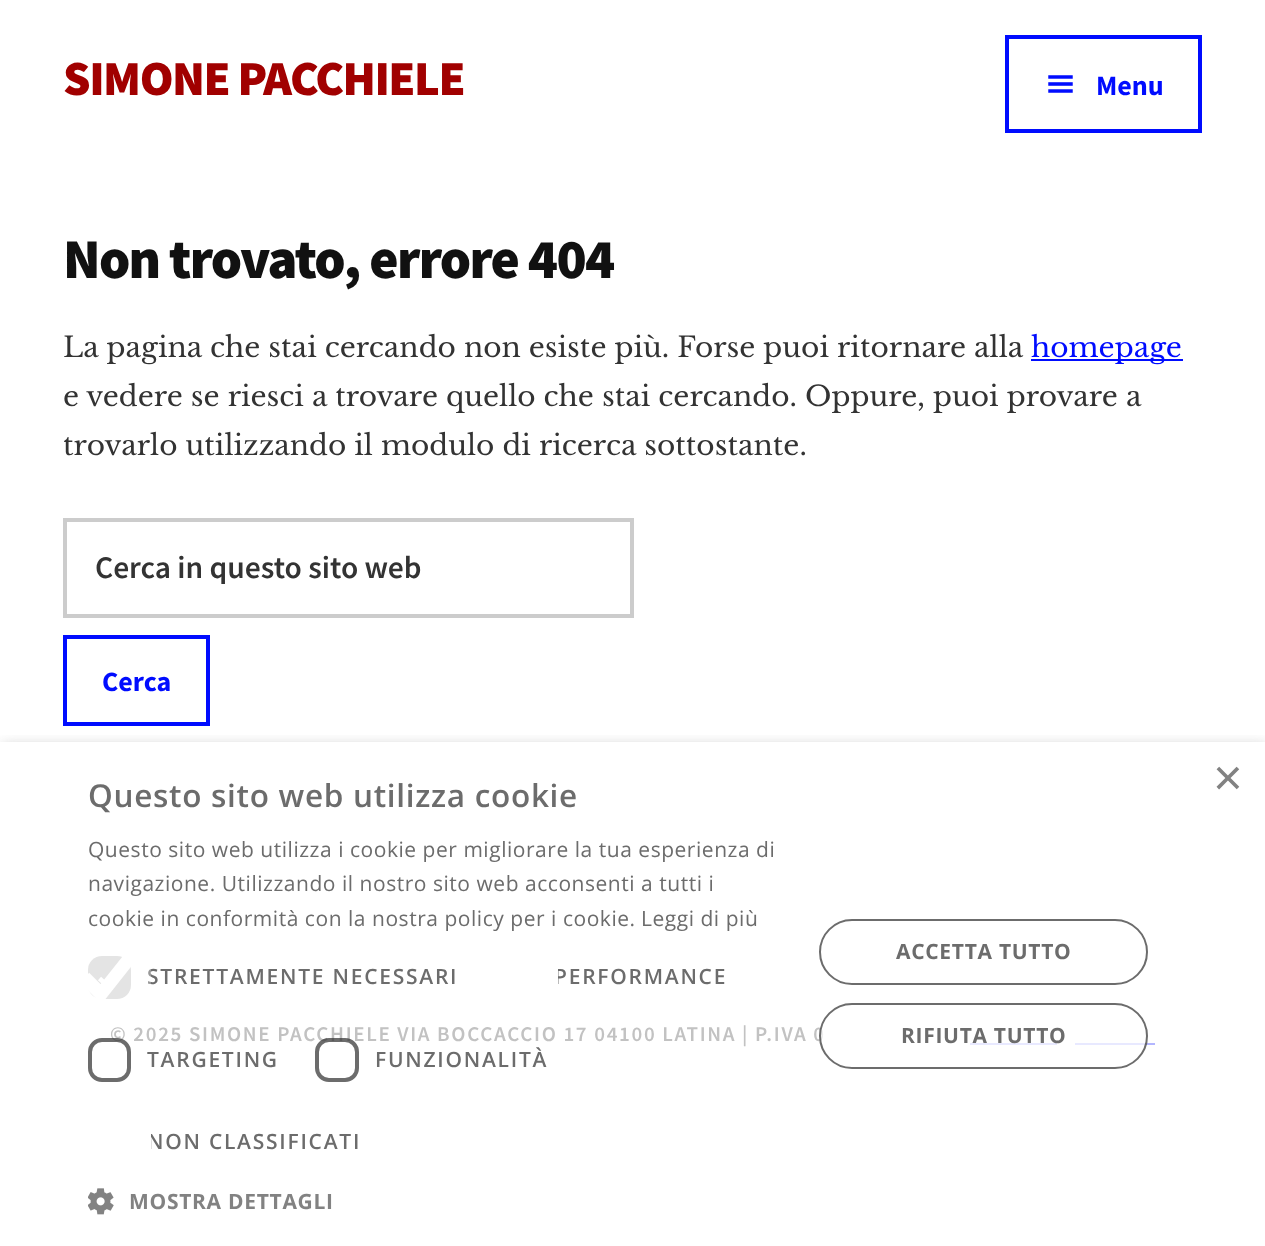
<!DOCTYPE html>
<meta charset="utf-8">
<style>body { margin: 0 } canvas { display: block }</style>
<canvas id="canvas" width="1265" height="1246"></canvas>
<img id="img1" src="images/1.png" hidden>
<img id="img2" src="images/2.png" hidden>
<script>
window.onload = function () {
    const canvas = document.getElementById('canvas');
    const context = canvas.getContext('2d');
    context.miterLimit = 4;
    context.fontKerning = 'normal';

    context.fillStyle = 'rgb(255, 255, 255)';
    context.fillRect(0, 0, 1265, 1246);
    context.strokeStyle = 'rgb(0, 12, 255)';
    context.lineWidth = 4;
    context.strokeRect(1007, 37, 193, 94);
    context.drawImage(document.getElementById('img1'), 1048, 75, 25, 18);
    context.fillStyle = 'rgb(0, 12, 255)';
    context.fillRect(1031, 359, 152, 2);
    context.strokeStyle = 'rgb(204, 204, 204)';
    context.strokeRect(65, 520, 567, 96);
    context.strokeStyle = 'rgb(0, 12, 255)';
    context.strokeRect(65, 637, 143, 87);
    context.fillStyle = 'rgb(179, 182, 255)';
    context.fillRect(970, 1043, 87, 2);
    context.fillRect(1075, 1043, 80, 2);
    context.save();
    context.beginPath();
    context.rect(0, 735, 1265, 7);
    context.clip();
    context.fillStyle = 'rgba(77, 77, 77, 0.35)';
    context.filter = 'blur(7px)';
    context.beginPath();
    context.rect(2, 746, 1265, 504);
    context.fill();
    context.filter = 'none';
    context.restore();
    context.fillStyle = 'rgb(217, 217, 217)';
    context.beginPath();
    context.roundRect(88, 956, 43, 43, 14);
    context.fill();
    context.beginPath();
    context.moveTo(99.5, 978.5);
    context.lineTo(105.5, 984);
    context.lineTo(119, 970.5);
    context.strokeStyle = 'rgb(255, 255, 255)';
    context.lineWidth = 4.6;
    context.stroke();
    context.drawImage(document.getElementById('img2'), 88, 1188, 26, 27);
    context.beginPath();
    context.roundRect(820, 920, 327, 64, 32);
    context.strokeStyle = 'rgb(108, 108, 108)';
    context.lineWidth = 2;
    context.stroke();
    context.letterSpacing = '-1.5px';
    context.font = '900 49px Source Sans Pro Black';
    context.fillStyle = 'rgb(161, 0, 0)';
    context.fillText('SIMONE PACCHIELE', 63, 95);
    context.letterSpacing = '0px';
    context.font = 'bold 28px Source Sans Pro';
    context.fillStyle = 'rgb(0, 12, 255)';
    context.fillText('Menu', 1096, 95);
    context.letterSpacing = '-1.7px';
    context.font = '900 56px Source Sans Pro Black';
    context.fillStyle = 'rgb(17, 17, 17)';
    context.fillText('Non trovato, errore 404', 63, 278);
    context.letterSpacing = '0px';
    context.font = '28px Libre Baskerville';
    context.fillStyle = 'rgb(51, 51, 51)';
    context.fillText('La pagina che stai cercando non esiste più. Forse puoi ritornare alla', 63, 357);
    context.fillStyle = 'rgb(0, 12, 255)';
    context.fillText('homepage', 1031, 357);
    context.fillStyle = 'rgb(51, 51, 51)';
    context.fillText('e vedere se riesci a trovare quello che stai cercando. Oppure, puoi provare a', 63, 406);
    context.fillText('trovarlo utilizzando il modulo di ricerca sottostante.', 63, 455);
    context.font = '600 31.5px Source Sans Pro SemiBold';
    context.fillText('Cerca in questo sito web', 95, 578);
    context.font = 'bold 28px Source Sans Pro';
    context.fillStyle = 'rgb(0, 12, 255)';
    context.fillText('Cerca', 102, 691);
    context.letterSpacing = '1.68px';
    context.font = '600 21px Source Sans Pro SemiBold';
    context.fillStyle = 'rgb(194, 194, 194)';
    context.fillText('© 2025 SIMONE PACCHIELE VIA BOCCACCIO 17 04100 LATINA | P.IVA 0', 110, 1041);
    context.letterSpacing = '0px';
    context.font = '51px Liberation Sans';
    context.fillStyle = 'rgb(130, 130, 130)';
    context.fillText('×', 1213, 795);
    context.letterSpacing = '0.7px';
    context.font = '600 31.5px Open Sans';
    context.fillStyle = 'rgb(108, 108, 108)';
    context.fillText('Questo sito web utilizza cookie', 88, 807);
    context.letterSpacing = '0.53px';
    context.font = '21px Open Sans';
    context.fillText('Questo sito web utilizza i cookie per migliorare la tua esperienza di', 88, 857);
    context.fillText('navigazione. Utilizzando il nostro sito web acconsenti a tutti i', 88, 891);
    context.fillText('cookie in conformità con la nostra policy per i cookie.', 88, 926);
    context.fillText('Leggi di più', 641, 926);
    context.letterSpacing = '1.75px';
    context.font = '600 21px Open Sans';
    context.fillText('STRETTAMENTE NECESSARI', 147, 984);
    context.fillStyle = 'rgba(255, 255, 255, 0.3)';
    context.beginPath();
    context.roundRect(68, 936, 83, 83, 4);
    context.fill();
    context.beginPath();
    context.moveTo(84.5, 977.5);
    context.lineTo(101, 994);
    context.lineTo(134, 952.5);
    context.strokeStyle = 'rgb(255, 255, 255)';
    context.lineWidth = 13.2;
    context.stroke();
    context.fillStyle = 'rgb(108, 108, 108)';
    context.fillText('PERFORMANCE', 554, 984);
    context.fillStyle = 'rgb(255, 255, 255)';
    context.beginPath();
    context.roundRect(476, 936, 82, 83, 4);
    context.fill();
    context.beginPath();
    context.roundRect(90, 1040, 39, 40, 12);
    context.strokeStyle = 'rgba(45, 45, 45, 0.7)';
    context.lineWidth = 4;
    context.stroke();
    context.fillStyle = 'rgb(108, 108, 108)';
    context.fillText('TARGETING', 147, 1067);
    context.beginPath();
    context.roundRect(317, 1040, 40, 40, 12);
    context.stroke();
    context.fillText('FUNZIONALITÀ', 375, 1067);
    context.fillText('NON CLASSIFICATI', 147, 1149);
    context.fillStyle = 'rgb(255, 255, 255)';
    context.beginPath();
    context.roundRect(68, 1101, 83, 82, 4);
    context.fill();
    context.letterSpacing = '0.7px';
    context.font = 'bold 21px Open Sans';
    context.fillStyle = 'rgb(130, 130, 130)';
    context.fillText('MOSTRA DETTAGLI', 129, 1209);
    context.fillStyle = 'rgb(108, 108, 108)';
    context.fillText('ACCETTA TUTTO', 896, 959);
    context.fillStyle = 'rgba(255, 255, 255, 0.7)';
    context.beginPath();
    context.roundRect(819, 1003, 329, 66, 33);
    context.fill();
    context.beginPath();
    context.roundRect(820, 1004, 327, 64, 32);
    context.lineWidth = 2;
    context.stroke();
    context.fillStyle = 'rgb(108, 108, 108)';
    context.fillText('RIFIUTA TUTTO', 901, 1043);
};
</script>
